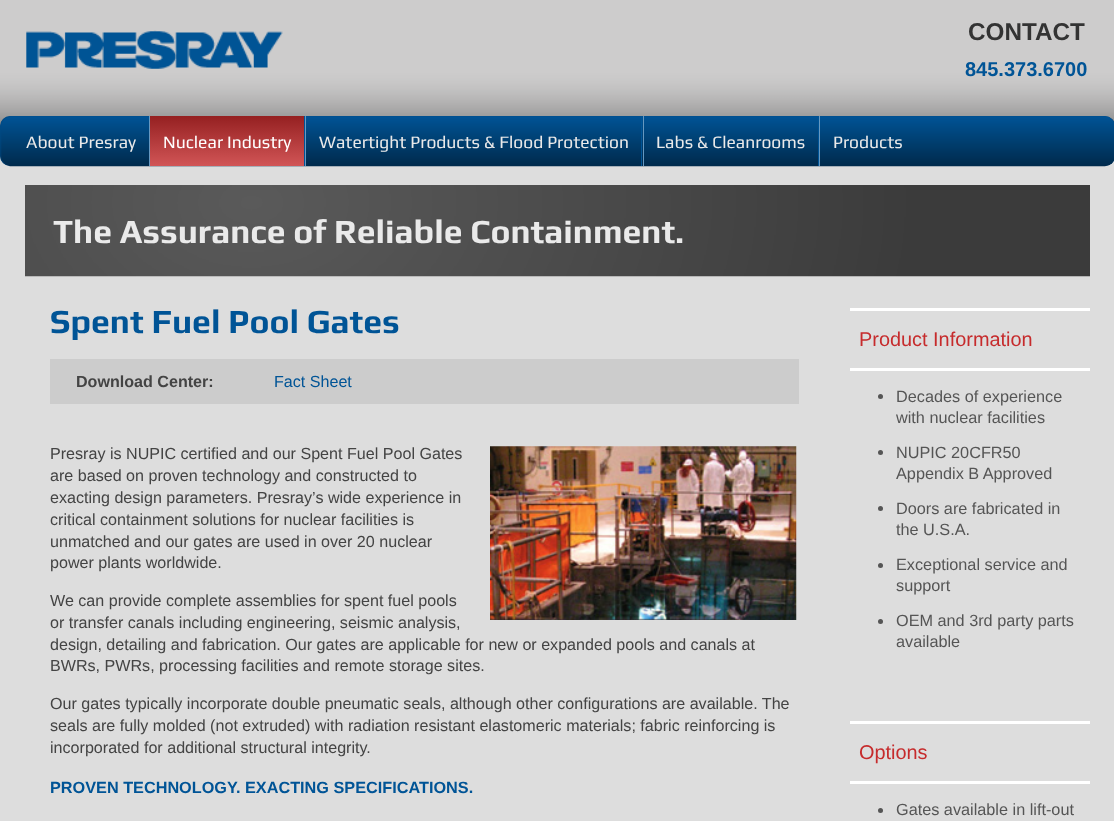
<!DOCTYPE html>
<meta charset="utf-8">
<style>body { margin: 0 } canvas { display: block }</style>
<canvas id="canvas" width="1114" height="821"></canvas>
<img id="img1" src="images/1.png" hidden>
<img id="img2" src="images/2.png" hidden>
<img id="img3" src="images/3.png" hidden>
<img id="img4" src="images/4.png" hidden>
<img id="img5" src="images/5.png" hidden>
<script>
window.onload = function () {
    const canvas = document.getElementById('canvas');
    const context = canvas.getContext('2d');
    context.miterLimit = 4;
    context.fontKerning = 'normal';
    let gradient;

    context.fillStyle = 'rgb(221, 221, 221)';
    context.fillRect(0, 0, 1114, 821);
    context.drawImage(document.getElementById('img1'), 0, 0, 1114, 126);
    context.drawImage(document.getElementById('img2'), 26, 30, 257, 39);
    context.fillStyle = 'rgb(0, 74, 132)';
    context.beginPath();
    context.roundRect(0, 116, 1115, 50, 10);
    context.fill();
    context.drawImage(document.getElementById('img3'), 0, 116, 1114, 51);
    context.fillStyle = 'rgb(0, 84, 150)';
    context.fillRect(304, 116, 1, 50);
    context.fillStyle = 'rgb(102, 152, 192)';
    context.fillRect(149, 116, 1, 50);
    gradient = context.createLinearGradient(150, 116, 150, 166);
    gradient.addColorStop(0, 'rgb(149, 32, 33)');
    gradient.addColorStop(1, 'rgb(209, 85, 86)');
    context.fillStyle = gradient;
    context.fillRect(150, 116, 154, 50);
    context.fillStyle = 'rgb(0, 84, 150)';
    context.fillRect(641, 116, 1, 50);
    context.fillStyle = 'rgb(102, 152, 192)';
    context.fillRect(305, 116, 1, 50);
    context.fillStyle = 'rgb(0, 84, 150)';
    context.fillRect(818, 116, 1, 50);
    context.fillStyle = 'rgb(102, 152, 192)';
    context.fillRect(643, 116, 1, 50);
    context.fillRect(819, 116, 1, 50);
    context.drawImage(document.getElementById('img4'), 25, 185, 1065, 92);
    context.fillStyle = 'rgb(204, 204, 204)';
    context.fillRect(50, 359, 749, 45);
    context.drawImage(document.getElementById('img5'), 490, 446, 307, 174);
    context.fillStyle = 'rgb(255, 255, 255)';
    context.fillRect(850, 308, 240, 3);
    context.fillRect(850, 368, 240, 3);
    context.fillStyle = 'rgb(85, 85, 85)';
    context.beginPath();
    context.arc(880.5, 396.5, 2.5, 0, 2 * Math.PI);
    context.fill();
    context.beginPath();
    context.arc(880.5, 452.5, 2.5, 0, 2 * Math.PI);
    context.fill();
    context.beginPath();
    context.arc(880.5, 508.5, 2.5, 0, 2 * Math.PI);
    context.fill();
    context.beginPath();
    context.arc(880.5, 565.5, 2.5, 0, 2 * Math.PI);
    context.fill();
    context.beginPath();
    context.arc(880.5, 621.5, 2.5, 0, 2 * Math.PI);
    context.fill();
    context.fillStyle = 'rgb(255, 255, 255)';
    context.fillRect(850, 721, 240, 3);
    context.fillRect(850, 781, 240, 3);
    context.fillStyle = 'rgb(85, 85, 85)';
    context.beginPath();
    context.arc(880.5, 810.5, 2.5, 0, 2 * Math.PI);
    context.fill();
    context.font = 'bold 24.25px Liberation Sans';
    context.fillStyle = 'rgb(51, 51, 51)';
    context.fillText('CONTACT', 968, 40);
    context.font = 'bold 20px Liberation Sans';
    context.fillStyle = 'rgb(0, 84, 150)';
    context.fillText('845.373.6700', 965, 76);
    context.font = '17.5px Play';
    context.fillStyle = 'rgb(234, 234, 234)';
    context.fillText('About Presray', 26, 148);
    context.fillStyle = 'rgb(255, 255, 255)';
    context.fillText('Nuclear Industry', 163, 148);
    context.fillStyle = 'rgb(234, 234, 234)';
    context.fillText('Watertight Products & Flood Protection', 319, 148);
    context.fillText('Labs & Cleanrooms', 656, 148);
    context.fillText('Products', 833, 148);
    context.font = 'bold 33.75px Play';
    context.fillText('The Assurance of Reliable Containment.', 53, 243);
    context.fillStyle = 'rgb(0, 84, 150)';
    context.fillText('Spent Fuel Pool Gates', 50, 333);
    context.font = 'bold 16.1px Liberation Sans';
    context.fillStyle = 'rgb(68, 68, 68)';
    context.fillText('Download Center:', 76, 387);
    context.font = '16.1px Liberation Sans';
    context.fillStyle = 'rgb(0, 84, 150)';
    context.fillText('Fact Sheet', 274, 387);
    context.fillStyle = 'rgb(68, 68, 68)';
    context.fillText('Presray is NUPIC certified and our Spent Fuel Pool Gates', 50, 459);
    context.fillText('are based on proven technology and constructed to', 50, 481);
    context.fillText('exacting design parameters. Presray’s wide experience in', 50, 503);
    context.fillText('critical containment solutions for nuclear facilities is', 50, 525);
    context.fillText('unmatched and our gates are used in over 20 nuclear', 50, 547);
    context.fillText('power plants worldwide.', 50, 568);
    context.fillText('We can provide complete assemblies for spent fuel pools', 50, 606);
    context.fillText('or transfer canals including engineering, seismic analysis,', 50, 628);
    context.fillText('design, detailing and fabrication. Our gates are applicable for new or expanded pools and canals at', 50, 650);
    context.fillText('BWRs, PWRs, processing facilities and remote storage sites.', 50, 671);
    context.fillText('Our gates typically incorporate double pneumatic seals, although other configurations are available. The', 50, 709);
    context.fillText('seals are fully molded (not extruded) with radiation resistant elastomeric materials; fabric reinforcing is', 50, 731);
    context.fillText('incorporated for additional structural integrity.', 50, 753);
    context.font = 'bold 16.25px Liberation Sans';
    context.fillStyle = 'rgb(0, 84, 150)';
    context.fillText('PROVEN TECHNOLOGY. EXACTING SPECIFICATIONS.', 50, 793);
    context.font = '19.9px Liberation Sans';
    context.fillStyle = 'rgb(198, 43, 44)';
    context.fillText('Product Information', 859, 346);
    context.font = '16.25px Liberation Sans';
    context.fillStyle = 'rgb(85, 85, 85)';
    context.fillText('Decades of experience', 896, 402);
    context.fillText('with nuclear facilities', 896, 423);
    context.fillText('NUPIC 20CFR50', 896, 458);
    context.fillText('Appendix B Approved', 896, 479);
    context.fillText('Doors are fabricated in', 896, 514);
    context.fillText('the U.S.A.', 896, 535);
    context.fillText('Exceptional service and', 896, 570);
    context.fillText('support', 896, 591);
    context.fillText('OEM and 3rd party parts', 896, 626);
    context.fillText('available', 896, 647);
    context.font = '19.9px Liberation Sans';
    context.fillStyle = 'rgb(198, 43, 44)';
    context.fillText('Options', 859, 759);
    context.font = '16.25px Liberation Sans';
    context.fillStyle = 'rgb(85, 85, 85)';
    context.fillText('Gates available in lift-out', 896, 815);
};
</script>
